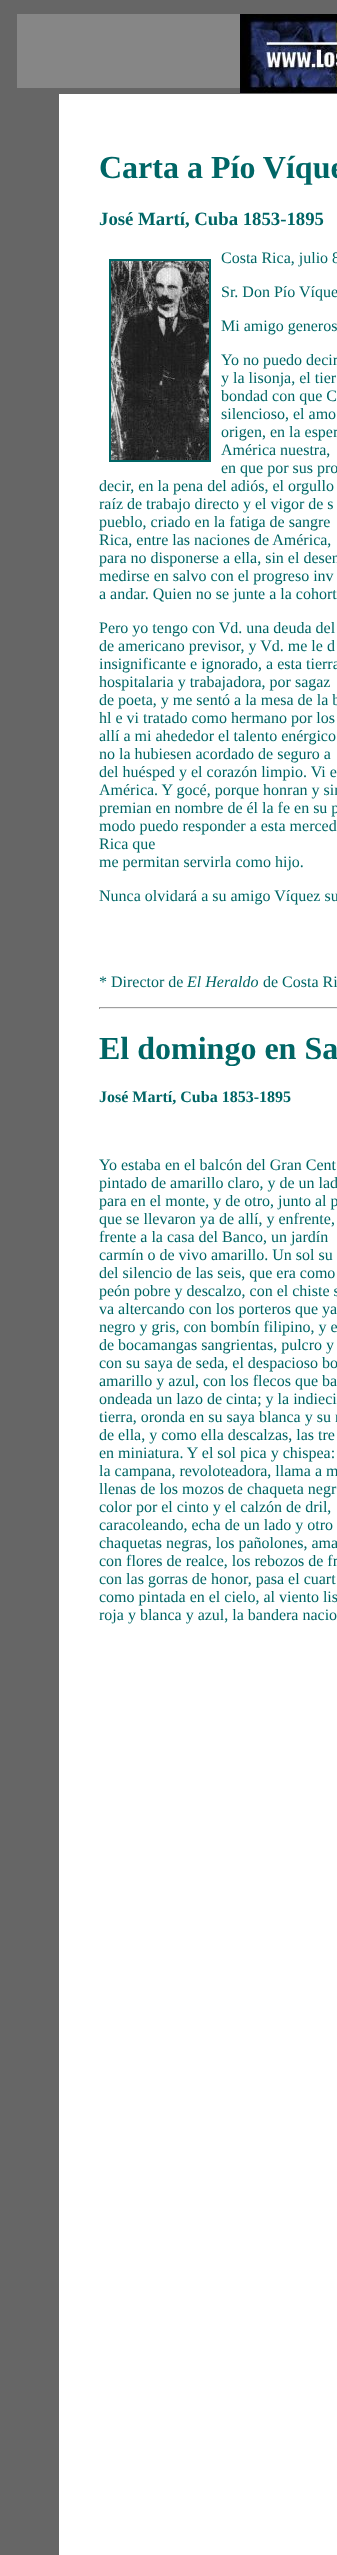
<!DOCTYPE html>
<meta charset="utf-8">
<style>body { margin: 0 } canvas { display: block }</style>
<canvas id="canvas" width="337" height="2555"></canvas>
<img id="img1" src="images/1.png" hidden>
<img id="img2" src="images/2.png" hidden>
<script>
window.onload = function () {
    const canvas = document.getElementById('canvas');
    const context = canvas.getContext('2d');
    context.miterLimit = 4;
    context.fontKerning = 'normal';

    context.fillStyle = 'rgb(102, 102, 102)';
    context.fillRect(0, 0, 337, 2555);
    context.fillStyle = 'rgb(134, 134, 134)';
    context.fillRect(17, 14, 223, 74);
    context.drawImage(document.getElementById('img1'), 240, 14, 97, 79);
    context.fillStyle = 'rgb(255, 255, 255)';
    context.fillRect(59, 94, 278, 2461);
    context.strokeStyle = 'rgb(0, 102, 102)';
    context.lineWidth = 2;
    context.strokeRect(110, 260, 100, 201);
    context.drawImage(document.getElementById('img2'), 111, 261, 98, 199);
    context.fillStyle = 'rgb(159, 159, 159)';
    context.fillRect(99, 1007, 238, 1);
    context.fillStyle = 'rgb(238, 238, 238)';
    context.fillRect(99, 1008, 238, 1);
    context.fillStyle = 'rgb(159, 159, 159)';
    context.fillRect(99, 1007, 1, 2);
    context.font = 'bold 32px Liberation Serif';
    context.fillStyle = 'rgb(0, 102, 102)';
    context.fillText('Carta a Pío Víque', 99, 178);
    context.font = 'bold 18.75px Liberation Serif';
    context.fillText('José Martí, Cuba 1853-1895', 99, 225);
    context.font = '16px Liberation Serif';
    context.fillText('Costa Rica, julio 8', 221, 263);
    context.fillText('Sr. Don Pío Víque', 221, 297);
    context.fillText('Mi amigo generos', 221, 331);
    context.fillText('Yo no puedo decir', 221, 365);
    context.fillText('y la lisonja, el tier', 221, 383);
    context.fillText('bondad con que C', 221, 401);
    context.fillText('silencioso, el amo', 221, 419);
    context.fillText('origen, en la esper', 221, 437);
    context.fillText('América nuestra,', 221, 455);
    context.fillText('en que por sus pro', 221, 473);
    context.fillText('decir, en la pena del adiós, el orgullo', 99, 491);
    context.fillText('raíz de trabajo directo y el vigor de s', 99, 509);
    context.fillText('pueblo, criado en la fatiga de sangre', 99, 527);
    context.fillText('Rica, entre las naciones de América,', 99, 545);
    context.fillText('para no disponerse a ella, sin el desen', 99, 563);
    context.fillText('medirse en salvo con el progreso inv', 99, 581);
    context.fillText('a andar. Quien no se junte a la cohort', 99, 599);
    context.fillText('Pero yo tengo con Vd. una deuda del', 99, 633);
    context.fillText('de americano previsor, y Vd. me le d', 99, 651);
    context.fillText('insignificante e ignorado, a esta tierra', 99, 669);
    context.fillText('hospitalaria y trabajadora, por sagaz', 99, 687);
    context.fillText('de poeta, y me sentó a la mesa de la b', 99, 705);
    context.fillText('hl e vi tratado como hermano por los', 99, 723);
    context.fillText('allí a mi ahededor el talento enérgico', 99, 741);
    context.fillText('no la hubiesen acordado de seguro a', 99, 759);
    context.fillText('del huésped y el corazón limpio. Vi e', 99, 777);
    context.fillText('América. Y gocé, porque honran y sir', 99, 795);
    context.fillText('premian en nombre de él la fe en su p', 99, 813);
    context.fillText('modo puedo responder a esta merced', 99, 831);
    context.fillText('Rica que', 99, 849);
    context.fillText('me permitan servirla como hijo.', 99, 867);
    context.fillText('Nunca olvidará a su amigo Víquez su', 99, 901);
    context.fillText('* Director de', 99, 987);
    context.font = 'italic 16px Liberation Serif';
    context.fillText('El Heraldo', 187, 987);
    context.font = '16px Liberation Serif';
    context.fillText('de Costa Ri', 263, 987);
    context.font = 'bold 32px Liberation Serif';
    context.fillText('El domingo en Sa', 99, 1059);
    context.font = 'bold 16px Liberation Serif';
    context.fillText('José Martí, Cuba 1853-1895', 99, 1102);
    context.font = '16px Liberation Serif';
    context.fillText('Yo estaba en el balcón del Gran Cent', 99, 1170);
    context.fillText('pintado de amarillo claro, y de un lad', 99, 1188);
    context.fillText('para en el monte, y de otro, junto al p', 99, 1206);
    context.fillText('que se llevaron ya de allí, y enfrente,', 99, 1224);
    context.fillText('frente a la casa del Banco, un jardín', 99, 1242);
    context.fillText('carmín o de vivo amarillo. Un sol su', 99, 1260);
    context.fillText('del silencio de las seis, que era como', 99, 1278);
    context.fillText('peón pobre y descalzo, con el chiste s', 99, 1296);
    context.fillText('va altercando con los porteros que ya', 99, 1314);
    context.fillText('negro y gris, con bombín filipino, y e', 99, 1332);
    context.fillText('de bocamangas sangrientas, pulcro y', 99, 1350);
    context.fillText('con su saya de seda, el despacioso bo', 99, 1368);
    context.fillText('amarillo y azul, con los flecos que ba', 99, 1386);
    context.fillText('ondeada un lazo de cinta; y la indieci', 99, 1404);
    context.fillText('tierra, oronda en su saya blanca y su r', 99, 1422);
    context.fillText('de ella, y como ella descalzas, las tre', 99, 1440);
    context.fillText('en miniatura. Y el sol pica y chispea:', 99, 1458);
    context.fillText('la campana, revoloteadora, llama a m', 99, 1476);
    context.fillText('llenas de los mozos de chaqueta negr', 99, 1494);
    context.fillText('color por el cinto y el calzón de dril,', 99, 1512);
    context.fillText('caracoleando, echa de un lado y otro', 99, 1530);
    context.fillText('chaquetas negras, los pañolones, ama', 99, 1548);
    context.fillText('con flores de realce, los rebozos de fr', 99, 1566);
    context.fillText('con las gorras de honor, pasa el cuart', 99, 1584);
    context.fillText('como pintada en el cielo, al viento lis', 99, 1602);
    context.fillText('roja y blanca y azul, la bandera nacio', 99, 1620);
};
</script>
